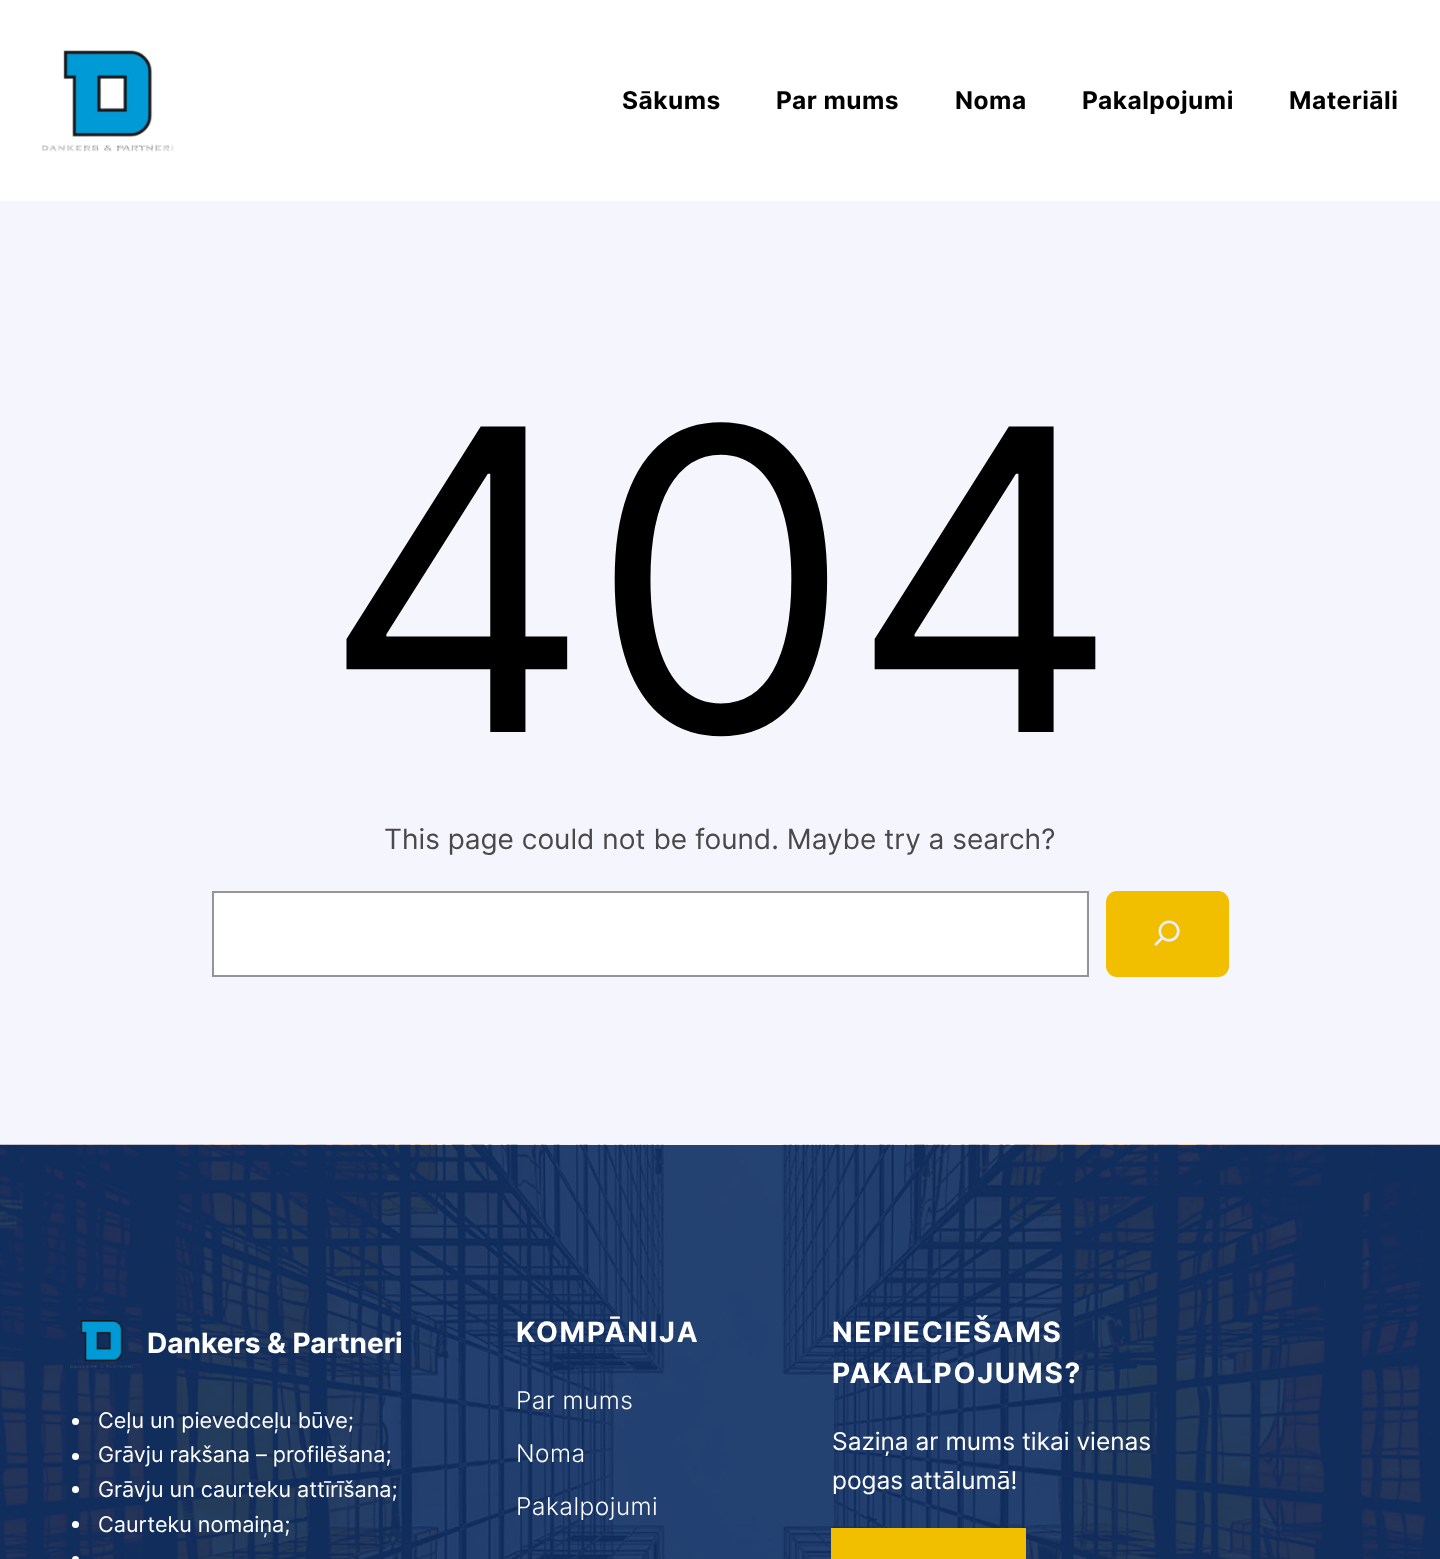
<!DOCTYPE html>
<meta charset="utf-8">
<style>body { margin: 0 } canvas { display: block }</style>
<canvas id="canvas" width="1440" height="1559"></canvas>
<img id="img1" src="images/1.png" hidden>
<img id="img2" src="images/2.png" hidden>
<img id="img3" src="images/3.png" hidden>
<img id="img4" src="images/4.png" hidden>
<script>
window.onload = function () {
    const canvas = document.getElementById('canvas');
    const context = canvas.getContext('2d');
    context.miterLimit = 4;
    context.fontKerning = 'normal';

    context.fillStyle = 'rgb(255, 255, 255)';
    context.fillRect(0, 0, 1440, 1559);
    context.drawImage(document.getElementById('img1'), 42, 50, 132, 102);
    context.fillStyle = 'rgb(245, 245, 253)';
    context.fillRect(0, 201, 1440, 944);
    context.fillStyle = 'rgb(255, 255, 255)';
    context.beginPath();
    context.rect(213, 892, 875, 84);
    context.fill();
    context.strokeStyle = 'rgb(148, 148, 148)';
    context.lineWidth = 2;
    context.stroke();
    context.fillStyle = 'rgb(242, 190, 0)';
    context.beginPath();
    context.roundRect(1106, 891, 123, 86, 11);
    context.fill();
    context.drawImage(document.getElementById('img2'), 1154, 920, 26, 26);
    context.drawImage(document.getElementById('img3'), 0, 1144, 1440, 415);
    context.drawImage(document.getElementById('img4'), 70, 1320, 63, 49);
    context.fillStyle = 'rgb(255, 255, 255)';
    context.beginPath();
    context.arc(75.5, 1421.5, 3.5, 0, 2 * Math.PI);
    context.fill();
    context.beginPath();
    context.arc(75.5, 1456.5, 3.5, 0, 2 * Math.PI);
    context.fill();
    context.beginPath();
    context.arc(75.5, 1489.5, 3.5, 0, 2 * Math.PI);
    context.fill();
    context.beginPath();
    context.arc(75.5, 1524.5, 3.5, 0, 2 * Math.PI);
    context.fill();
    context.beginPath();
    context.arc(75.5, 1559.5, 3.5, 0, 2 * Math.PI);
    context.fill();
    context.fillStyle = 'rgb(242, 190, 0)';
    context.fillRect(831, 1528, 195, 31);
    context.letterSpacing = '0.5px';
    context.font = 'bold 24.5px Inter';
    context.fillStyle = 'rgb(0, 0, 0)';
    context.fillText('Sākums', 622, 109);
    context.fillText('Par mums', 776, 109);
    context.fillText('Noma', 955, 109);
    context.fillText('Pakalpojumi', 1082, 109);
    context.fillText('Materiāli', 1289, 109);
    context.letterSpacing = '-2px';
    context.font = '420px Inter';
    context.fillText('404', 322, 732);
    context.letterSpacing = '0px';
    context.font = '28px Inter';
    context.fillStyle = 'rgb(73, 73, 73)';
    context.fillText('This page could not be found. Maybe try a search?', 384, 849);
    context.font = 'bold 28px Inter';
    context.fillStyle = 'rgb(255, 255, 255)';
    context.fillText('Dankers & Partneri', 147, 1353);
    context.font = '21.6px Inter';
    context.fillText('Ceļu un pievedceļu būve;', 98, 1428);
    context.fillText('Grāvju rakšana – profilēšana;', 98, 1462);
    context.fillText('Grāvju un caurteku attīrīšana;', 98, 1497);
    context.fillText('Caurteku nomaiņa;', 98, 1532);
    context.letterSpacing = '1.75px';
    context.font = 'bold 28px Inter';
    context.fillText('KOMPĀNIJA', 516, 1342);
    context.letterSpacing = '0.5px';
    context.font = '300 24.5px Inter';
    context.fillText('Par mums', 516, 1409);
    context.fillText('Noma', 516, 1462);
    context.fillText('Pakalpojumi', 516, 1515);
    context.letterSpacing = '1.75px';
    context.font = 'bold 28px Inter';
    context.fillText('NEPIECIEŠAMS', 832, 1342);
    context.fillText('PAKALPOJUMS?', 832, 1383);
    context.letterSpacing = '0px';
    context.font = '24.5px Inter';
    context.fillText('Saziņa ar mums tikai vienas', 832, 1450);
    context.fillText('pogas attālumā!', 832, 1489);
};
</script>
